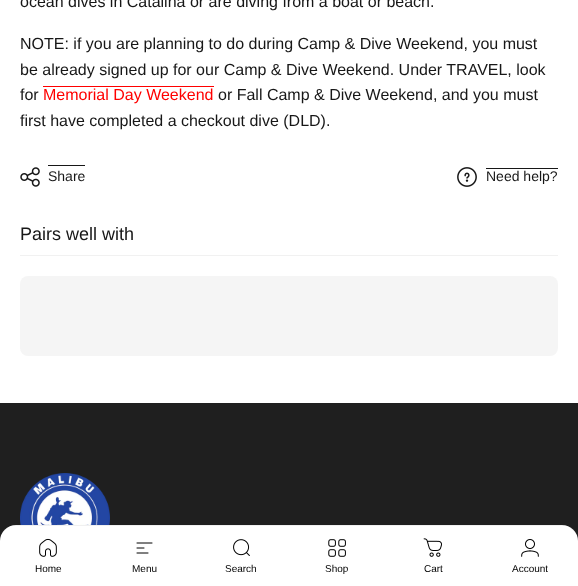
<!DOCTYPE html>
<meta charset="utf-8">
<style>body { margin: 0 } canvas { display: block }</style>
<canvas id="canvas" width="578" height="586"></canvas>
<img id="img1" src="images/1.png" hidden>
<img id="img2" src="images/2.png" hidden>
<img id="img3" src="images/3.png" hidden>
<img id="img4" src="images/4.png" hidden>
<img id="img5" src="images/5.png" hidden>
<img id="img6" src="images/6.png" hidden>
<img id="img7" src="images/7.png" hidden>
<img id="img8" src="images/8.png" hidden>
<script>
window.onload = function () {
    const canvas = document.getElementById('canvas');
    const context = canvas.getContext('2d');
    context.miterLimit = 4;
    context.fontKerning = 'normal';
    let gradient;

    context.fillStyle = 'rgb(255, 255, 255)';
    context.fillRect(0, 0, 578, 586);
    context.fillStyle = 'rgb(255, 0, 0)';
    context.fillRect(43, 86, 171, 1);
    context.drawImage(document.getElementById('img1'), 20, 167, 20, 20);
    context.fillStyle = 'rgb(23, 23, 23)';
    context.fillRect(48, 165, 37, 1);
    context.drawImage(document.getElementById('img2'), 457, 167, 20, 20);
    context.fillRect(486, 168, 72, 1);
    context.fillStyle = 'rgb(241, 241, 241)';
    context.fillRect(20, 255, 538, 1);
    gradient = context.createLinearGradient(46, 131, 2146, 501);
    gradient.addColorStop(0.4, 'rgb(245, 245, 245)');
    gradient.addColorStop(0.63, 'rgb(229, 229, 229)');
    gradient.addColorStop(0.79, 'rgb(245, 245, 245)');
    context.fillStyle = gradient;
    context.beginPath();
    context.roundRect(20, 276, 538, 80, 8);
    context.fill();
    context.fillStyle = 'rgb(31, 31, 31)';
    context.fillRect(0, 403, 578, 138);
    context.drawImage(document.getElementById('img3'), 20, 473, 90, 52);
    context.fillStyle = 'rgb(255, 255, 255)';
    context.beginPath();
    context.roundRect(0, 525, 578, 61, [16, 16, 0, 0]);
    context.fill();
    context.fillStyle = 'rgba(0, 0, 0, 0.06)';
    context.fillRect(8, 525, 562, 1);
    context.drawImage(document.getElementById('img4'), 39, 538, 18, 19);
    context.beginPath();
    context.moveTo(137, 543);
    context.lineTo(152, 543);
    context.moveTo(137, 548);
    context.lineTo(144, 548);
    context.moveTo(137, 553);
    context.lineTo(148, 553);
    context.strokeStyle = 'rgb(0, 0, 0)';
    context.lineCap = 'round';
    context.lineJoin = 'round';
    context.stroke();
    context.drawImage(document.getElementById('img5'), 233, 539, 17, 17);
    context.drawImage(document.getElementById('img6'), 328, 539, 18, 18);
    context.drawImage(document.getElementById('img7'), 423, 538, 19, 19);
    context.drawImage(document.getElementById('img8'), 521, 539, 18, 18);
    context.font = '16px Liberation Sans';
    context.fillStyle = 'rgb(23, 23, 23)';
    context.fillText('ocean dives in Catalina or are diving from a boat or beach.', 20, 7);
    context.fillText('NOTE: if you are planning to do during Camp & Dive Weekend, you must', 20, 49);
    context.fillText('be already signed up for our Camp & Dive Weekend. Under TRAVEL, look', 20, 75);
    context.fillText('for', 20, 100);
    context.fillStyle = 'rgb(255, 0, 0)';
    context.fillText('Memorial Day Weekend', 43, 100);
    context.fillStyle = 'rgb(23, 23, 23)';
    context.fillText('or Fall Camp & Dive Weekend, and you must', 218, 100);
    context.fillText('first have completed a checkout dive (DLD).', 20, 126);
    context.font = '14px Liberation Sans';
    context.fillText('Share', 48, 181);
    context.fillText('Need help?', 486, 181);
    context.font = '18px Liberation Sans';
    context.fillText('Pairs well with', 20, 240);
    context.font = '10px Liberation Sans';
    context.fillStyle = 'rgb(0, 0, 0)';
    context.fillText('Home', 35, 572);
    context.fillText('Menu', 132, 572);
    context.fillText('Search', 225, 572);
    context.fillText('Shop', 325, 572);
    context.fillText('Cart', 424, 572);
    context.fillText('Account', 512, 572);
};
</script>
